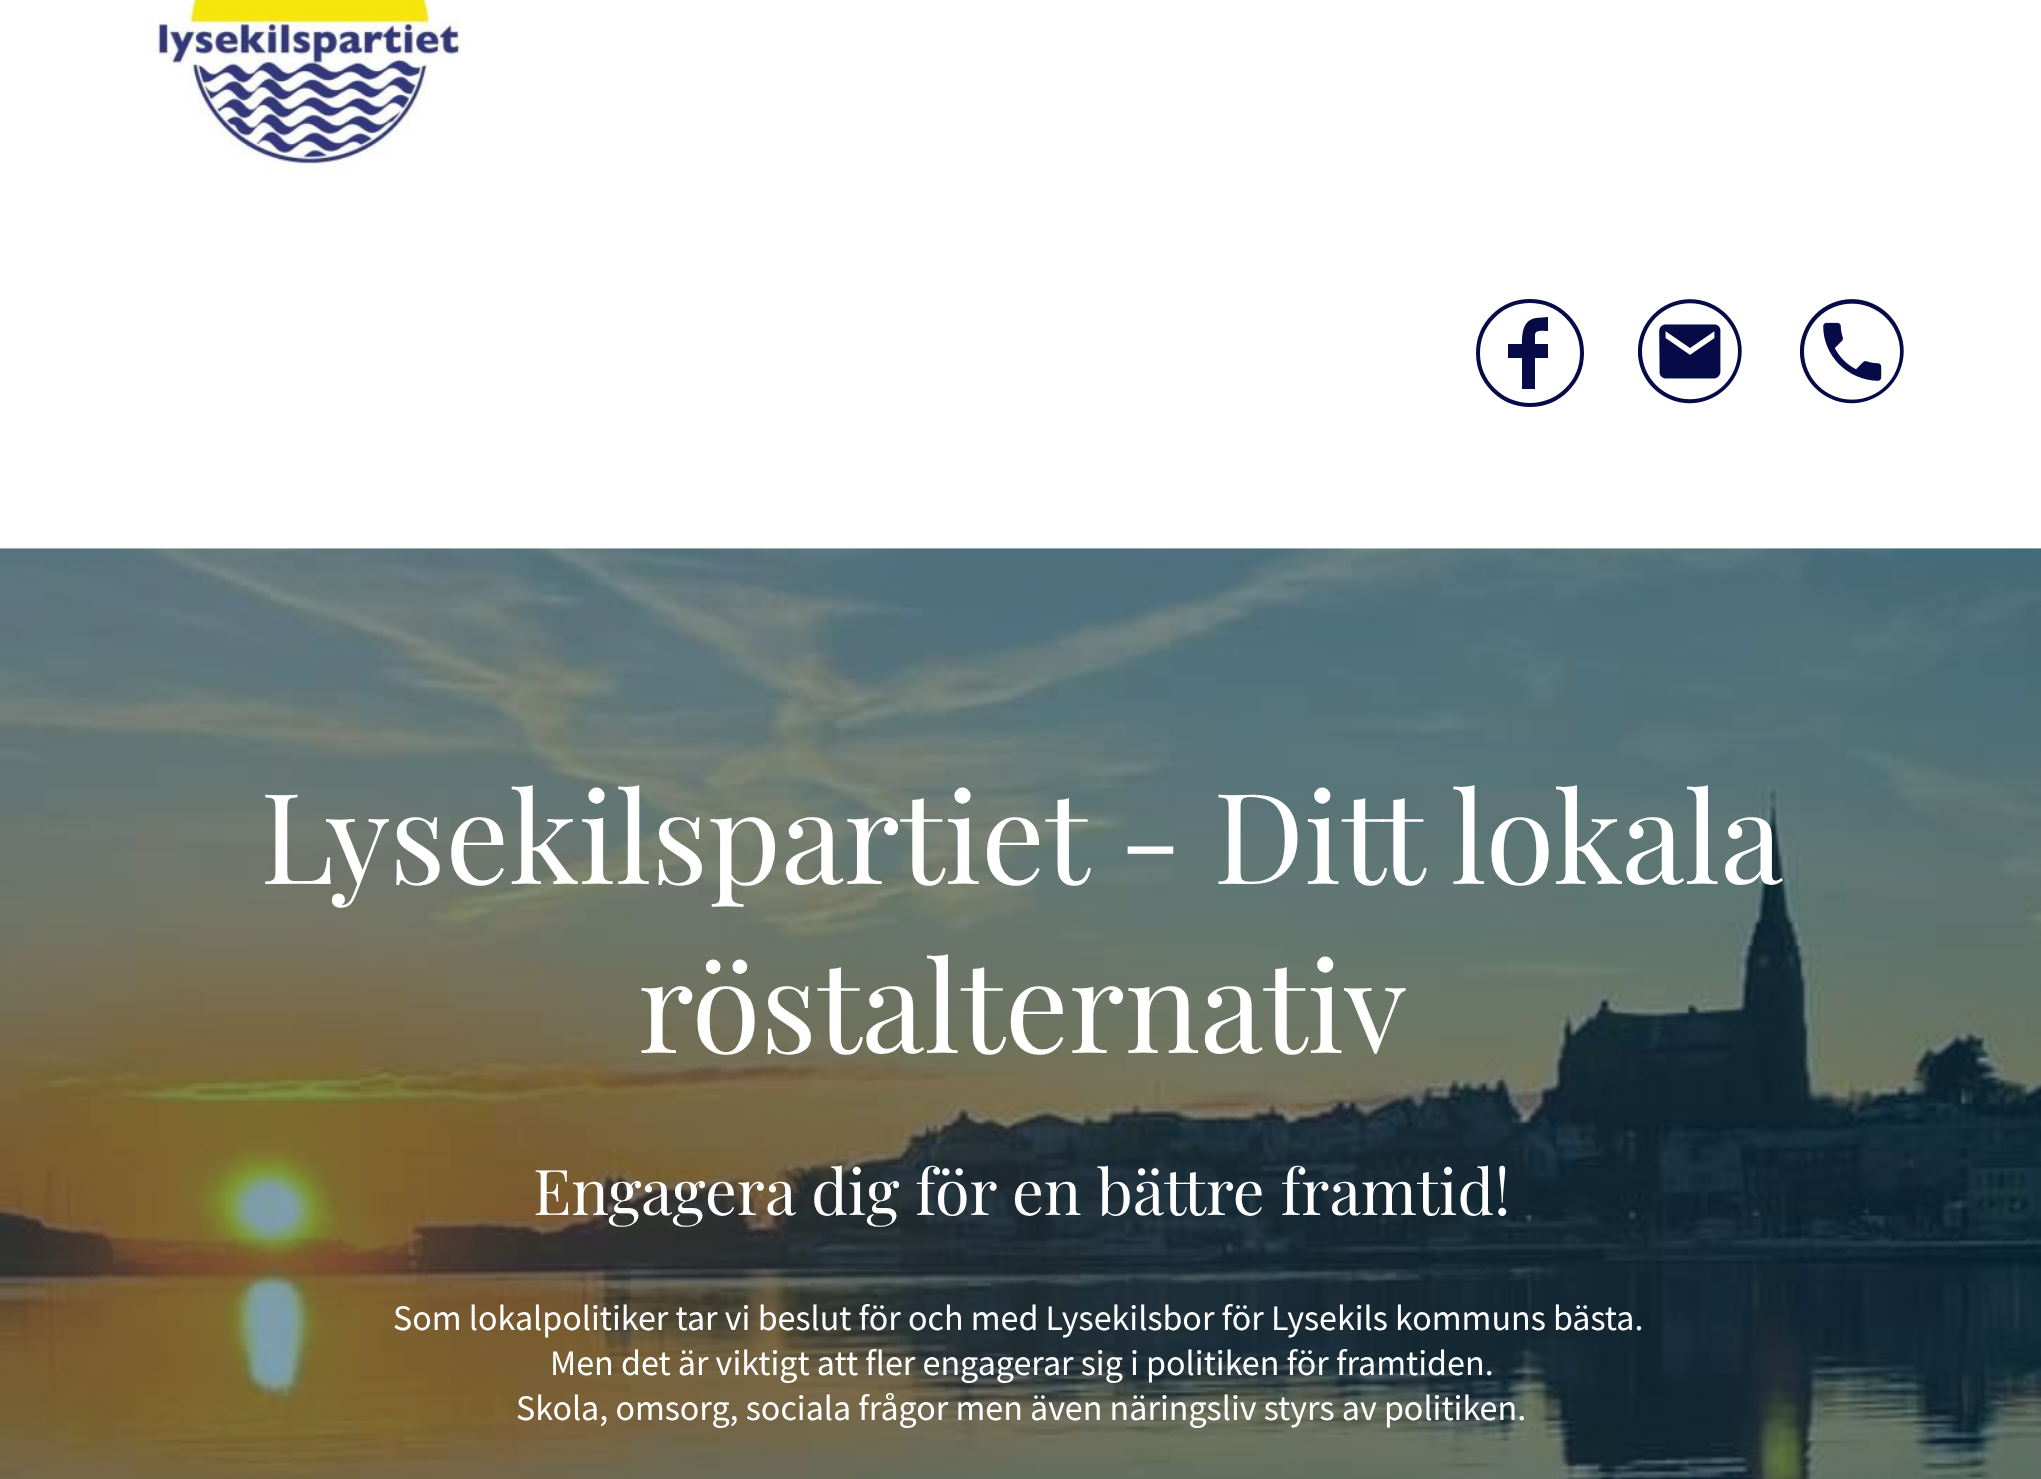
<!DOCTYPE html>
<meta charset="utf-8">
<style>body { margin: 0 } canvas { display: block }</style>
<canvas id="canvas" width="2041" height="1479"></canvas>
<img id="img1" src="images/1.png" hidden>
<img id="img2" src="images/2.png" hidden>
<img id="img3" src="images/3.png" hidden>
<img id="img4" src="images/4.png" hidden>
<script>
window.onload = function () {
    const canvas = document.getElementById('canvas');
    const context = canvas.getContext('2d');
    context.miterLimit = 4;
    context.fontKerning = 'normal';

    context.fillStyle = 'rgb(255, 255, 255)';
    context.fillRect(0, 0, 2041, 1479);
    context.drawImage(document.getElementById('img1'), 148, 0, 322, 176);
    context.beginPath();
    context.arc(1530, 353, 52, 0, 2 * Math.PI);
    context.strokeStyle = 'rgb(6, 11, 72)';
    context.lineWidth = 4;
    context.stroke();
    context.fillStyle = 'rgb(6, 11, 72)';
    context.beginPath();
    context.moveTo(1535, 344);
    context.lineTo(1548, 344);
    context.lineTo(1548, 358);
    context.lineTo(1535, 358);
    context.lineTo(1535, 389);
    context.lineTo(1522, 389);
    context.lineTo(1522, 358);
    context.lineTo(1508, 358);
    context.lineTo(1508, 344);
    context.lineTo(1522, 344);
    context.bezierCurveTo(1522, 333, 1523, 320, 1536, 318);
    context.lineTo(1548, 317);
    context.lineTo(1548, 331);
    context.bezierCurveTo(1545, 331, 1535, 329, 1535, 335);
    context.closePath();
    context.fill();
    context.drawImage(document.getElementById('img2'), 1638, 299, 104, 105);
    context.drawImage(document.getElementById('img3'), 1800, 299, 104, 105);
    context.drawImage(document.getElementById('img4'), 0, 548, 2041, 931);
    context.font = '126px Playfair Display';
    context.fillStyle = 'rgb(255, 255, 255)';
    context.fillText('Lysekilspartiet - Ditt lokala', 260, 884);
    context.fillText('röstalternativ', 638, 1053);
    context.font = '63px Playfair Display';
    context.fillText('Engagera dig för en bättre framtid!', 533, 1215);
    context.font = '36px Source Sans Pro';
    context.fillText('Som lokalpolitiker tar vi beslut för och med Lysekilsbor för Lysekils kommuns bästa.', 393, 1330);
    context.fillText('Men det är viktigt att fler engagerar sig i politiken för framtiden.', 550, 1375);
    context.fillText('Skola, omsorg, sociala frågor men även näringsliv styrs av politiken.', 516, 1420);
};
</script>
